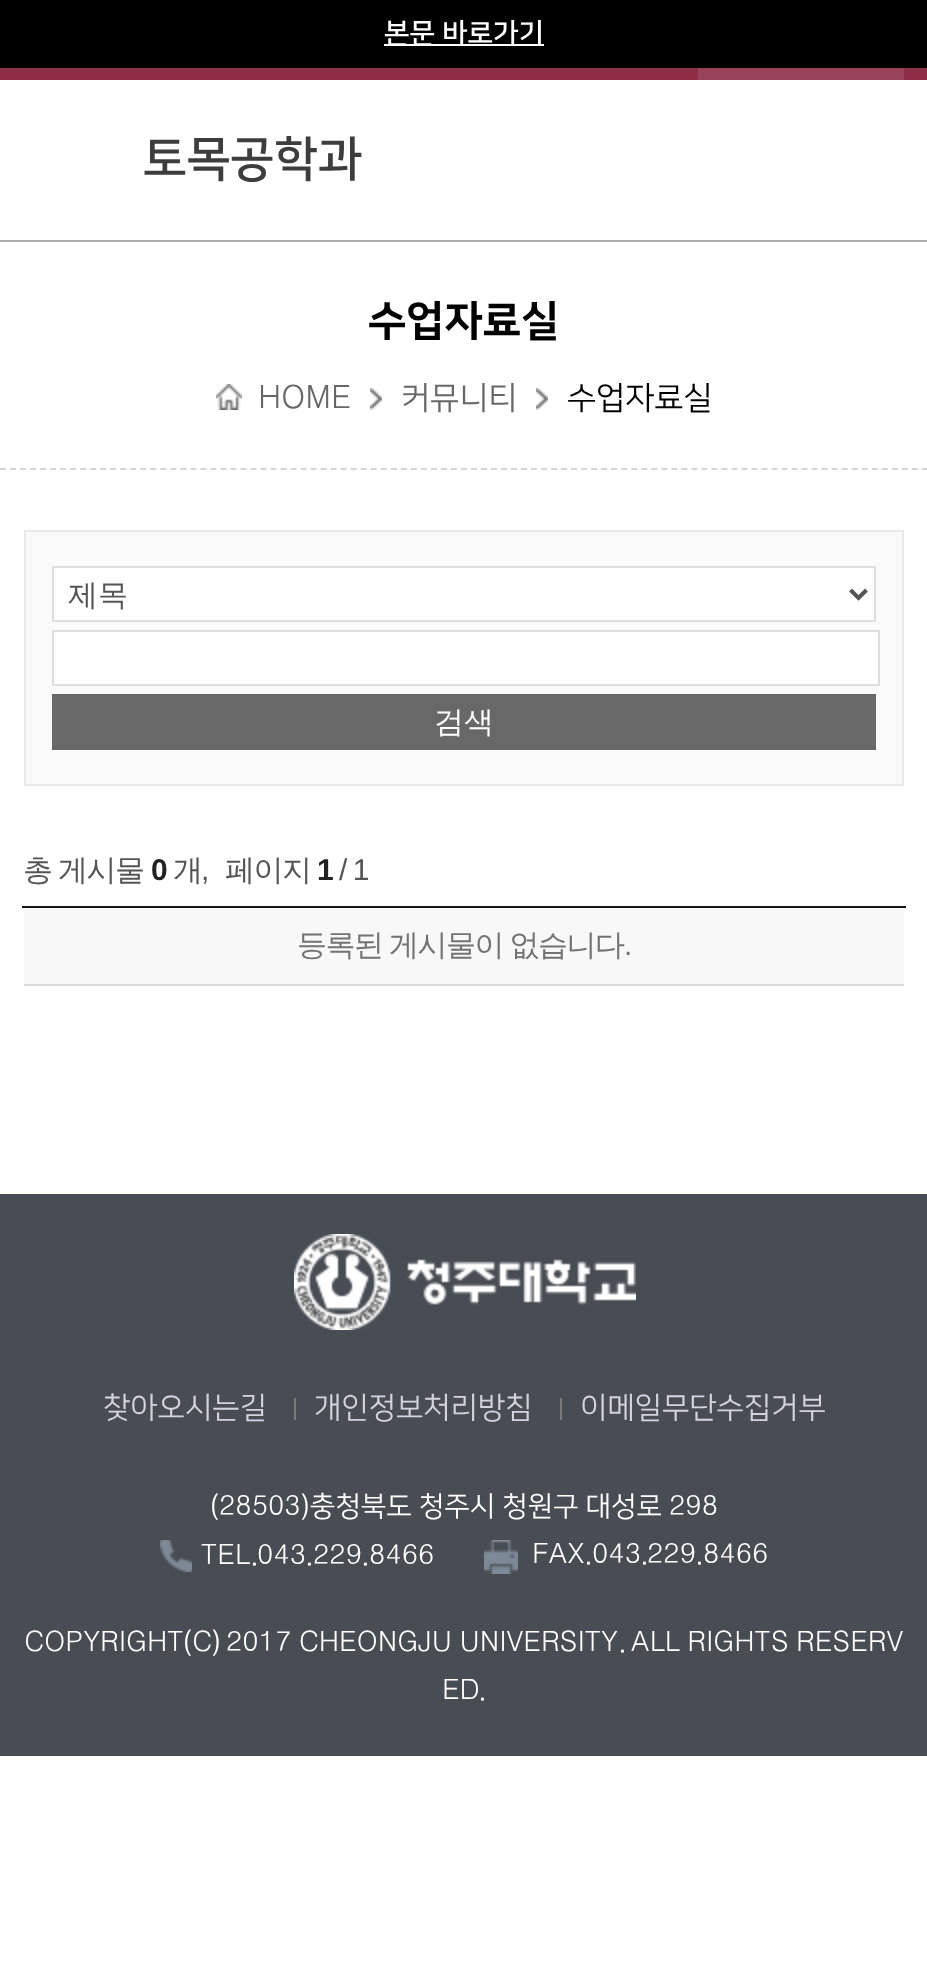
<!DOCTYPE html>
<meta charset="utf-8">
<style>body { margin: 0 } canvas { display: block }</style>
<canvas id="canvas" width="927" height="1969"></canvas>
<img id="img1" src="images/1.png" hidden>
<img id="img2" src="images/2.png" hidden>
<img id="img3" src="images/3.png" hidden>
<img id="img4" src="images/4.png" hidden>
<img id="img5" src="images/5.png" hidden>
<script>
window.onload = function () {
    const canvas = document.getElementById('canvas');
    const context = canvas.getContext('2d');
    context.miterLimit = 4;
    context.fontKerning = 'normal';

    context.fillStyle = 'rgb(255, 255, 255)';
    context.fillRect(0, 0, 927, 1969);
    context.fillStyle = 'rgb(172, 172, 172)';
    context.fillRect(0, 240, 927, 2);
    context.fillStyle = 'rgb(0, 0, 0)';
    context.fillRect(0, 0, 927, 68);
    context.fillStyle = 'rgb(255, 255, 255)';
    context.fillRect(384, 44, 160, 2);
    context.fillStyle = 'rgb(141, 46, 70)';
    context.fillRect(0, 68, 927, 12);
    context.fillStyle = 'rgb(152, 67, 89)';
    context.fillRect(698, 68, 206, 12);
    context.beginPath();
    context.moveTo(0, 469);
    context.lineTo(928, 469);
    context.strokeStyle = 'rgb(213, 213, 213)';
    context.lineWidth = 2;
    context.setLineDash([6, 4.02]);
    context.stroke();
    context.drawImage(document.getElementById('img1'), 216, 384, 26, 26);
    context.drawImage(document.getElementById('img2'), 370, 388, 12, 22);
    context.drawImage(document.getElementById('img2'), 536, 388, 12, 22);
    context.fillStyle = 'rgb(250, 250, 250)';
    context.beginPath();
    context.rect(25, 531, 878, 254);
    context.fill();
    context.strokeStyle = 'rgb(233, 233, 233)';
    context.setLineDash([]);
    context.stroke();
    context.fillStyle = 'rgb(255, 255, 255)';
    context.beginPath();
    context.rect(53, 567, 822, 54);
    context.fill();
    context.strokeStyle = 'rgb(222, 222, 222)';
    context.stroke();
    context.beginPath();
    context.moveTo(850.5, 590);
    context.lineTo(858.5, 598);
    context.lineTo(866.5, 590);
    context.strokeStyle = 'rgb(85, 85, 85)';
    context.lineWidth = 4;
    context.stroke();
    context.beginPath();
    context.rect(53, 631, 826, 54);
    context.fill();
    context.strokeStyle = 'rgb(222, 222, 222)';
    context.lineWidth = 2;
    context.stroke();
    context.fillStyle = 'rgb(104, 104, 104)';
    context.fillRect(52, 694, 824, 56);
    context.fillStyle = 'rgb(21, 21, 21)';
    context.fillRect(22, 906, 884, 2);
    context.fillStyle = 'rgb(248, 248, 248)';
    context.fillRect(24, 908, 880, 76);
    context.fillStyle = 'rgb(217, 217, 217)';
    context.fillRect(24, 984, 880, 2);
    context.fillStyle = 'rgb(72, 77, 83)';
    context.fillRect(0, 1194, 927, 562);
    context.drawImage(document.getElementById('img3'), 294, 1234, 342, 96);
    context.fillStyle = 'rgb(122, 122, 122)';
    context.fillRect(294, 1398, 2, 22);
    context.fillRect(560, 1398, 2, 22);
    context.drawImage(document.getElementById('img4'), 160, 1540, 32, 32);
    context.drawImage(document.getElementById('img5'), 484, 1540, 34, 34);
    context.font = 'bold 28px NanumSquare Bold';
    context.fillStyle = 'rgb(255, 255, 255)';
    context.fillText('본문 바로가기', 384, 42);
    context.font = 'bold 48px NanumSquare Bold';
    context.fillStyle = 'rgb(61, 61, 61)';
    context.fillText('토목공학과', 143, 174);
    context.font = 'bold 42px "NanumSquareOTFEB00"';
    context.fillStyle = 'rgb(0, 0, 0)';
    context.fillText('수업자료실', 368, 334);
    context.font = '32px Dotum';
    context.fillStyle = 'rgb(103, 103, 103)';
    context.fillText('HOME', 258, 408);
    context.font = '32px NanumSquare';
    context.fillText('커뮤니티', 401, 408);
    context.fillStyle = 'rgb(0, 0, 0)';
    context.fillText('수업자료실', 567, 408);
    context.font = '500 30px WenQuanYi Zen Hei';
    context.fillStyle = 'rgb(85, 85, 85)';
    context.fillText('제목', 68, 605);
    context.fillStyle = 'rgb(255, 255, 255)';
    context.fillText('검색', 434, 732);
    context.letterSpacing = '-1.5px';
    context.wordSpacing = '-1px';
    context.fillStyle = 'rgb(85, 85, 85)';
    context.fillText('총 게시물', 23, 880);
    context.wordSpacing = '0px';
    context.font = 'bold 30px Liberation Sans';
    context.fillStyle = 'rgb(34, 34, 34)';
    context.fillText('0', 151, 880);
    context.font = '500 30px WenQuanYi Zen Hei';
    context.fillStyle = 'rgb(85, 85, 85)';
    context.fillText('개', 173, 880);
    context.font = '30px Liberation Sans';
    context.fillText(',', 201, 880);
    context.font = '500 30px WenQuanYi Zen Hei';
    context.fillText('페이지', 225, 880);
    context.font = 'bold 30px Liberation Sans';
    context.fillStyle = 'rgb(34, 34, 34)';
    context.fillText('1', 317, 880);
    context.font = '30px Liberation Sans';
    context.fillStyle = 'rgb(85, 85, 85)';
    context.fillText('/ 1', 339, 880);
    context.wordSpacing = '-1px';
    context.font = '500 30px WenQuanYi Zen Hei';
    context.fillStyle = 'rgb(115, 115, 115)';
    context.fillText('등록된 게시물이 없습니다', 297, 955);
    context.wordSpacing = '0px';
    context.font = '30px Liberation Sans';
    context.fillText('.', 624, 955);
    context.letterSpacing = '0px';
    context.font = '30px NanumSquare';
    context.fillStyle = 'rgb(209, 212, 222)';
    context.fillText('찾아오시는길', 103, 1417);
    context.fillText('개인정보처리방침', 314, 1417);
    context.fillText('이메일무단수집거부', 580, 1417);
    context.font = '28px NanumSquare';
    context.fillStyle = 'rgb(255, 255, 255)';
    context.fillText('(', 210, 1515);
    context.font = '28px Dotum';
    context.fillText('28503', 219, 1515);
    context.font = '28px NanumSquare';
    context.fillText(')충청북도 청주시 청원구 대성로', 301, 1515);
    context.font = '28px Dotum';
    context.fillText('298', 669, 1515);
    context.fillText('TEL', 201, 1564);
    context.font = '28px NanumSquare';
    context.fillText('.', 251, 1564);
    context.font = '28px Dotum';
    context.fillText('043', 257, 1564);
    context.font = '28px NanumSquare';
    context.fillText('.', 306, 1564);
    context.font = '28px Dotum';
    context.fillText('229', 313, 1564);
    context.font = '28px NanumSquare';
    context.fillText('.', 362, 1564);
    context.font = '28px Dotum';
    context.fillText('8466', 369, 1564);
    context.fillText('FAX', 532, 1563);
    context.font = '28px NanumSquare';
    context.fillText('.', 585, 1563);
    context.font = '28px Dotum';
    context.fillText('043', 592, 1563);
    context.font = '28px NanumSquare';
    context.fillText('.', 641, 1563);
    context.font = '28px Dotum';
    context.fillText('229', 647, 1563);
    context.font = '28px NanumSquare';
    context.fillText('.', 696, 1563);
    context.font = '28px Dotum';
    context.fillText('8466', 703, 1563);
    context.fillText('COPYRIGHT', 24, 1651);
    context.font = '28px NanumSquare';
    context.fillText('(', 183, 1651);
    context.font = '28px Dotum';
    context.fillText('C', 192, 1651);
    context.font = '28px NanumSquare';
    context.fillText(')', 212, 1651);
    context.wordSpacing = '-2px';
    context.font = '28px Dotum';
    context.fillText('2017 CHEONGJU UNIVERSITY', 226, 1651);
    context.wordSpacing = '0px';
    context.font = '28px NanumSquare';
    context.fillText('.', 619, 1651);
    context.wordSpacing = '-2px';
    context.font = '28px Dotum';
    context.fillText('ALL RIGHTS RESERV', 631, 1651);
    context.wordSpacing = '0px';
    context.fillText('ED', 442, 1699);
    context.font = '28px NanumSquare';
    context.fillText('.', 479, 1699);
};
</script>
